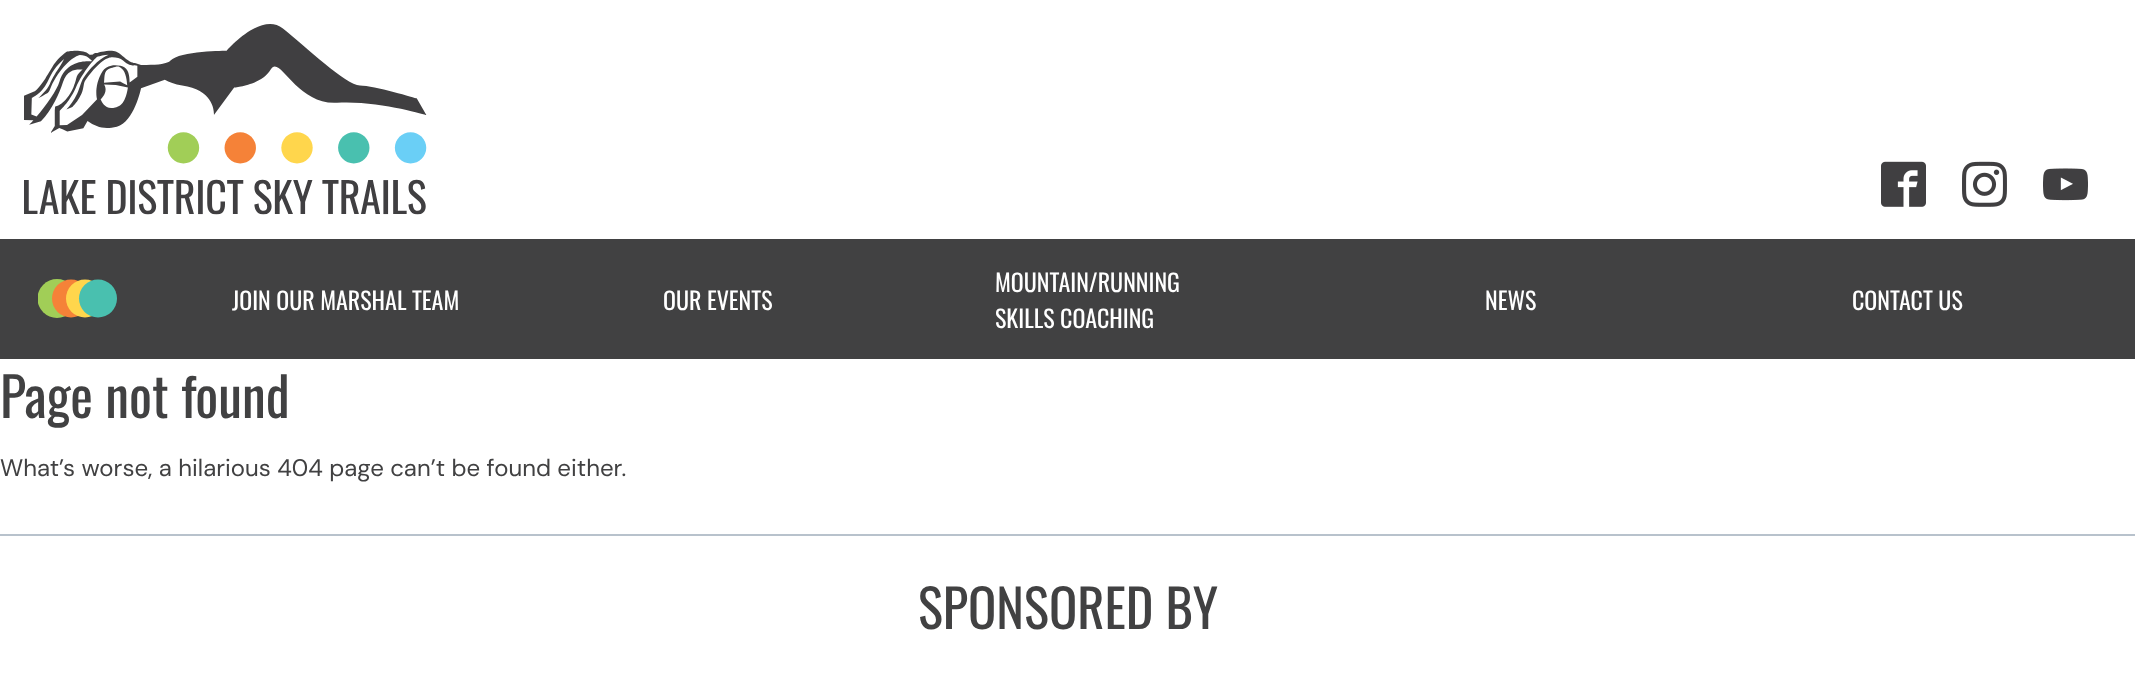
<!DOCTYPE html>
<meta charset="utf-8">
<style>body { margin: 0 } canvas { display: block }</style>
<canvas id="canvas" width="2135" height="683"></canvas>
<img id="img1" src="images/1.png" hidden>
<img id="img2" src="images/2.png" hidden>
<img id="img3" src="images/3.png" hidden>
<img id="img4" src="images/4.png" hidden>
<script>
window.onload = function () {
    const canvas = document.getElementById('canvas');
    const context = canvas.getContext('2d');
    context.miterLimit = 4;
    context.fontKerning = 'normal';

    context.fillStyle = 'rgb(255, 255, 255)';
    context.fillRect(0, 0, 2135, 683);
    context.drawImage(document.getElementById('img1'), 24, 24, 403, 191);
    context.drawImage(document.getElementById('img2'), 1881, 161, 45, 46);
    context.drawImage(document.getElementById('img3'), 1962, 161, 45, 46);
    context.drawImage(document.getElementById('img4'), 2043, 168, 45, 33);
    context.fillStyle = 'rgb(65, 65, 66)';
    context.fillRect(0, 239, 2135, 120);
    context.save();
    context.beginPath();
    context.rect(38, 279, 79, 39);
    context.clip();
    context.fillStyle = 'rgb(161, 206, 87)';
    context.beginPath();
    context.arc(57, 298.5, 19.5, 0, 2 * Math.PI);
    context.fill();
    context.restore();
    context.fillStyle = 'rgb(245, 130, 56)';
    context.beginPath();
    context.arc(71, 298.5, 19, 0, 2 * Math.PI);
    context.fill();
    context.fillStyle = 'rgb(255, 214, 76)';
    context.beginPath();
    context.arc(85, 298.5, 19, 0, 2 * Math.PI);
    context.fill();
    context.fillStyle = 'rgb(73, 192, 175)';
    context.beginPath();
    context.arc(98, 298.5, 19, 0, 2 * Math.PI);
    context.fill();
    context.fillStyle = 'rgb(184, 194, 204)';
    context.fillRect(0, 534, 2135, 2);
    context.font = '24px Oswald';
    context.fillStyle = 'rgb(255, 255, 255)';
    context.fillText('JOIN OUR MARSHAL TEAM', 232, 310);
    context.fillText('OUR EVENTS', 663, 310);
    context.fillText('MOUNTAIN/RUNNING', 995, 292);
    context.fillText('SKILLS COACHING', 995, 328);
    context.fillText('NEWS', 1485, 310);
    context.fillText('CONTACT US', 1852, 310);
    context.font = '54px Oswald';
    context.fillStyle = 'rgb(65, 65, 66)';
    context.fillText('Page not found', 0, 418);
    context.font = '24px DM Sans';
    context.fillText('What’s worse, a hilarious 404 page can’t be found either.', 0, 476);
    context.font = '52.5px Oswald';
    context.fillText('SPONSORED BY', 918, 629);
};
</script>
